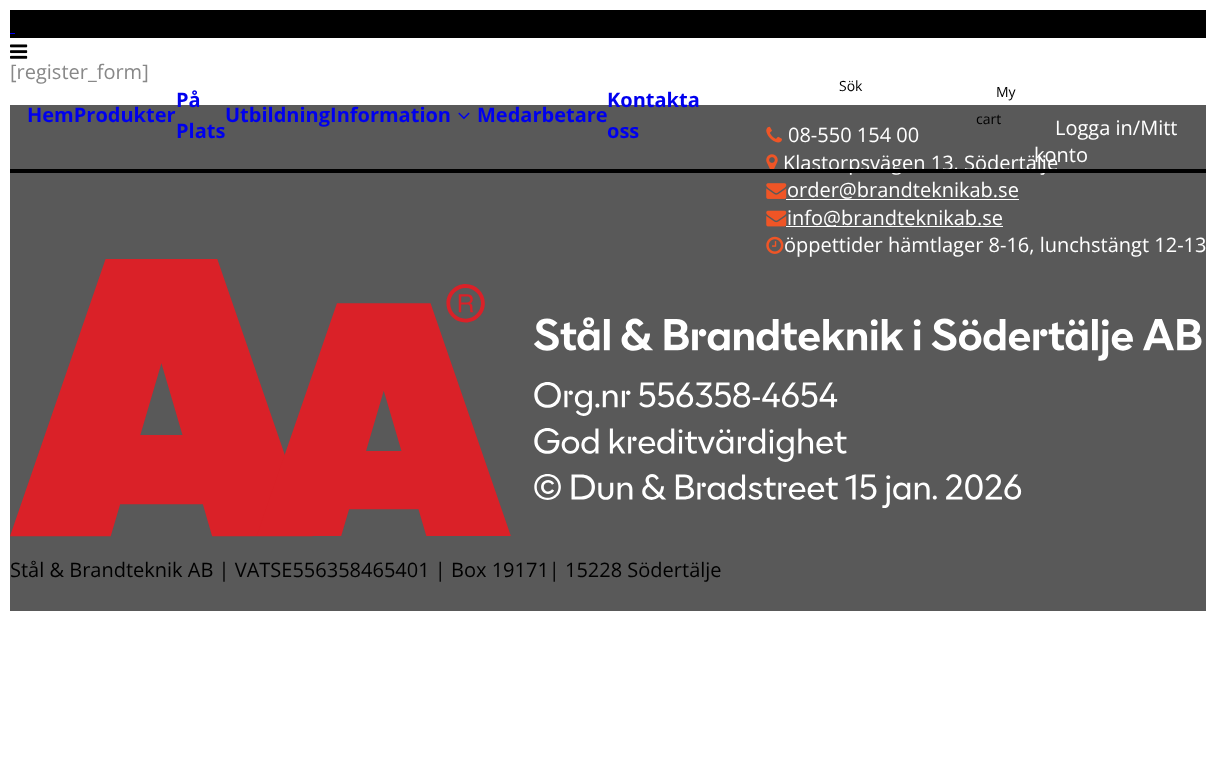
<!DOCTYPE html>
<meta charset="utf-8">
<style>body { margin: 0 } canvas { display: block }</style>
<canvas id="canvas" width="1216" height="770"></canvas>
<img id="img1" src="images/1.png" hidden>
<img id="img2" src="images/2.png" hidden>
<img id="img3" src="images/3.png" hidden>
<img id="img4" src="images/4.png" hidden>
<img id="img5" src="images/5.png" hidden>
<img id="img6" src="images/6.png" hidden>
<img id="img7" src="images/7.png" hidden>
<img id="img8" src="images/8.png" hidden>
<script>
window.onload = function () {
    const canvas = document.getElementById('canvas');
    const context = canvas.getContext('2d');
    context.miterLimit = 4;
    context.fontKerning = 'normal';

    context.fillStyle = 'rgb(255, 255, 255)';
    context.fillRect(0, 0, 1216, 770);
    context.fillStyle = 'rgb(0, 0, 0)';
    context.fillRect(10, 10, 1196, 28);
    context.drawImage(document.getElementById('img1'), 10, 44, 18, 15);
    context.fillStyle = 'rgb(89, 89, 89)';
    context.fillRect(10, 105, 1196, 506);
    context.drawImage(document.getElementById('img2'), 458, 112, 12, 8);
    context.fillStyle = 'rgb(0, 0, 238)';
    context.fillRect(10, 33, 5, 1);
    context.drawImage(document.getElementById('img3'), 766, 126, 16, 17);
    context.drawImage(document.getElementById('img4'), 766, 154, 12, 15);
    context.drawImage(document.getElementById('img5'), 766, 183, 21, 16);
    context.fillStyle = 'rgb(255, 255, 255)';
    context.fillRect(786, 199, 233, 1);
    context.drawImage(document.getElementById('img6'), 766, 210, 21, 17);
    context.fillRect(786, 226, 217, 1);
    context.drawImage(document.getElementById('img7'), 766, 236, 18, 18);
    context.drawImage(document.getElementById('img8'), 10, 259, 1192, 278);
    context.font = '20px Open Sans';
    context.fillStyle = 'rgb(136, 136, 136)';
    context.fillText('[register_form]', 10, 79);
    context.font = 'bold 20px Open Sans';
    context.fillStyle = 'rgb(0, 0, 238)';
    context.fillText('HemProdukter', 27, 122);
    context.fillText('På', 176, 107);
    context.fillText('Plats', 176, 138);
    context.fillText('UtbildningInformation', 225, 122);
    context.fillText('Medarbetare', 477, 122);
    context.fillText('Kontakta', 607, 107);
    context.fillText('oss', 607, 138);
    context.font = '14px Open Sans';
    context.fillStyle = 'rgb(0, 0, 0)';
    context.fillText('Sök', 839, 91);
    context.fillText('My', 996, 97);
    context.fillText('cart', 976, 124);
    context.font = '20px Open Sans';
    context.fillStyle = 'rgb(255, 255, 255)';
    context.fillText('Logga in/Mitt', 1055, 135);
    context.fillText('08-550 154 00', 788, 142);
    context.fillText('Klastorpsvägen 13, Södertälje', 783, 170);
    context.fillText('konto', 1034, 162);
    context.fillStyle = 'rgb(0, 0, 0)';
    context.fillRect(10, 169, 1196, 4);
    context.fillStyle = 'rgb(255, 255, 255)';
    context.fillText('order@brandteknikab.se', 787, 197);
    context.fillText('info@brandteknikab.se', 787, 225);
    context.fillText('öppettider hämtlager 8-16, lunchstängt 12-13', 784, 252);
    context.fillStyle = 'rgb(0, 0, 0)';
    context.fillText('Stål & Brandteknik AB | VATSE556358465401 | Box 19171| 15228 Södertälje', 10, 577);
};
</script>
